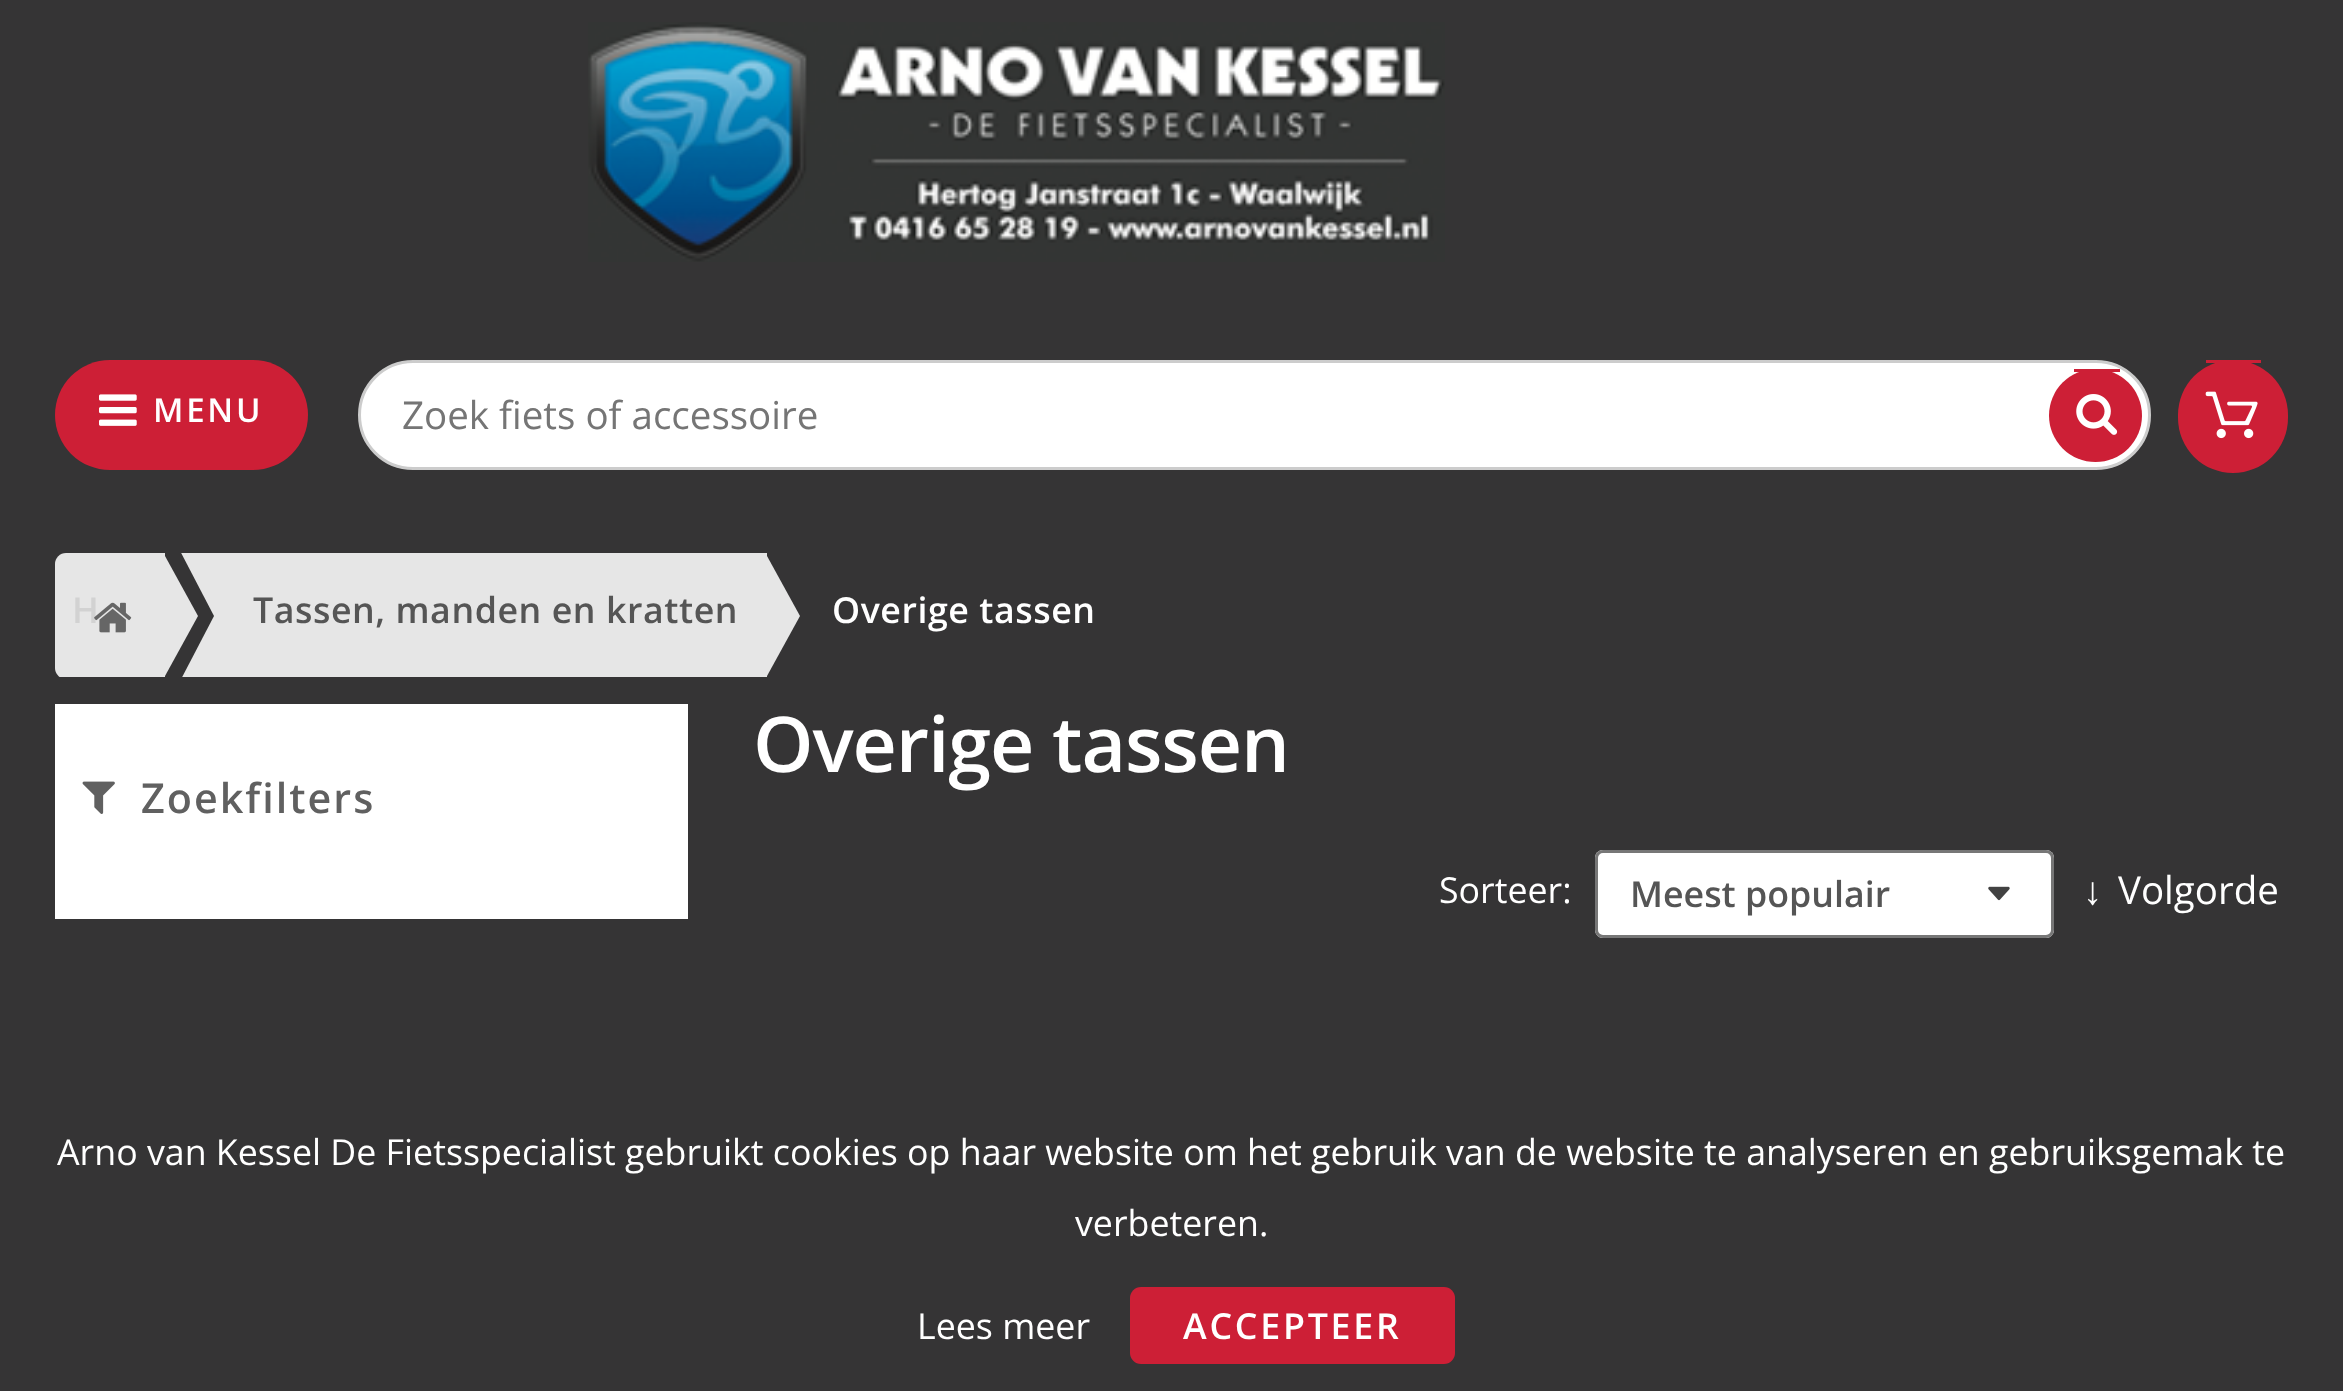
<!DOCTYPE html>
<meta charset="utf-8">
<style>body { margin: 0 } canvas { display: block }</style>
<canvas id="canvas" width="2343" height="1391"></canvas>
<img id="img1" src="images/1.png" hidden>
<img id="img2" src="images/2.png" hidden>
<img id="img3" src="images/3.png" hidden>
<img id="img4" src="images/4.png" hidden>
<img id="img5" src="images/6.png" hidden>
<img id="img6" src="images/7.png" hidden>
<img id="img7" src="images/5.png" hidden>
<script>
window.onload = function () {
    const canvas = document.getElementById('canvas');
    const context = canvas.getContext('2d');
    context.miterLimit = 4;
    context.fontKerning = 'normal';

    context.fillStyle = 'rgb(53, 52, 53)';
    context.fillRect(0, 0, 2343, 1391);
    context.drawImage(document.getElementById('img1'), 588, 22, 857, 240);
    context.fillStyle = 'rgb(205, 31, 54)';
    context.beginPath();
    context.roundRect(55, 360, 253, 110, 55);
    context.fill();
    context.drawImage(document.getElementById('img2'), 99, 394, 38, 32);
    context.fillStyle = 'rgb(255, 255, 255)';
    context.beginPath();
    context.roundRect(359.5, 361.5, 1790, 107, 53.5);
    context.fill();
    context.strokeStyle = 'rgb(204, 204, 204)';
    context.lineWidth = 3;
    context.stroke();
    context.fillStyle = 'rgb(205, 31, 54)';
    context.beginPath();
    context.arc(2095.5, 415.5, 46.5, 0, 2 * Math.PI);
    context.fill();
    context.fillRect(2074, 369, 46, 3);
    context.drawImage(document.getElementById('img3'), 2076, 394, 42, 41);
    context.beginPath();
    context.roundRect(2178, 360, 110, 113, 55);
    context.fill();
    context.fillRect(2206, 360, 55, 3);
    context.drawImage(document.getElementById('img4'), 2205, 391, 53, 48);
    context.save();
    context.beginPath();
    context.rect(55, 553, 2233, 124);
    context.clip();
    context.fillStyle = 'rgb(230, 230, 230)';
    context.beginPath();
    context.roundRect(55, 553, 110, 126, [11, 0, 0, 11]);
    context.fill();
    context.restore();
    context.fillStyle = 'rgb(230, 230, 230)';
    context.fillRect(181, 553, 586, 124);
    context.save();
    context.beginPath();
    context.rect(55, 553, 2233, 124);
    context.clip();
    context.fillStyle = 'rgb(53, 52, 53)';
    context.beginPath();
    context.moveTo(165, 710);
    context.lineTo(165, 522);
    context.lineTo(214, 616);
    context.closePath();
    context.fill();
    context.restore();
    context.beginPath();
    context.moveTo(165, 676);
    context.lineTo(165, 556);
    context.lineTo(198, 616);
    context.closePath();
    context.fill();
    context.beginPath();
    context.moveTo(767, 676);
    context.lineTo(767, 556);
    context.lineTo(800, 616);
    context.closePath();
    context.fill();
    context.fillStyle = 'rgb(255, 255, 255)';
    context.fillRect(55, 704, 633, 215);
    context.drawImage(document.getElementById('img5'), 82, 781, 33, 33);
    context.beginPath();
    context.roundRect(1595, 850, 459, 88, 8);
    context.fill();
    context.drawImage(document.getElementById('img6'), 1988, 886, 22, 15);
    context.beginPath();
    context.roundRect(1596.5, 851.5, 456, 85, 6.5);
    context.strokeStyle = 'rgb(119, 119, 119)';
    context.stroke();
    context.fillStyle = 'rgb(205, 31, 54)';
    context.beginPath();
    context.roundRect(1130, 1287, 325, 77, 11);
    context.fill();
    context.letterSpacing = '2.75px';
    context.font = '600 33px Open Sans';
    context.fillStyle = 'rgb(255, 255, 255)';
    context.fillText('MENU', 153, 422);
    context.letterSpacing = '0px';
    context.font = '38.5px Open Sans';
    context.fillStyle = 'rgb(117, 117, 117)';
    context.fillText('Zoek fiets of accessoire', 402, 429);
    context.letterSpacing = '0.55px';
    context.font = '600 35.75px Open Sans';
    context.fillStyle = 'rgb(210, 210, 210)';
    context.fillText('H', 72, 623);
    context.drawImage(document.getElementById('img7'), 94, 602, 38, 31);
    context.fillStyle = 'rgb(85, 85, 85)';
    context.fillText('Tassen, manden en kratten', 253, 623);
    context.fillStyle = 'rgb(255, 255, 255)';
    context.fillText('Overige tassen', 832, 623);
    context.letterSpacing = '2px';
    context.font = '600 41.25px Open Sans';
    context.fillStyle = 'rgb(96, 96, 96)';
    context.fillText('Zoekfilters', 141, 813);
    context.letterSpacing = '-1.1px';
    context.font = '600 77px Open Sans';
    context.fillStyle = 'rgb(255, 255, 255)';
    context.fillText('Overige tassen', 753, 772);
    context.letterSpacing = '0px';
    context.font = '35.75px Open Sans';
    context.fillText('Sorteer:', 1439, 903);
    context.font = '600 35.75px Open Sans';
    context.fillStyle = 'rgb(85, 85, 85)';
    context.fillText('Meest populair', 1630, 907);
    context.font = 'bold 38.5px Liberation Sans';
    context.fillStyle = 'rgb(255, 255, 255)';
    context.fillText('↓', 2083, 904);
    context.font = '38.5px Open Sans';
    context.fillText('Volgorde', 2118, 904);
    context.font = '35.75px Open Sans';
    context.fillText('Arno van Kessel De Fietsspecialist gebruikt cookies op haar website om het gebruik van de website te analyseren en gebruiksgemak te', 57, 1165);
    context.fillText('verbeteren.', 1075, 1236);
    context.fillText('Lees meer', 917, 1339);
    context.letterSpacing = '2.75px';
    context.font = '600 35.75px Open Sans';
    context.fillText('ACCEPTEER', 1183, 1339);
};
</script>
